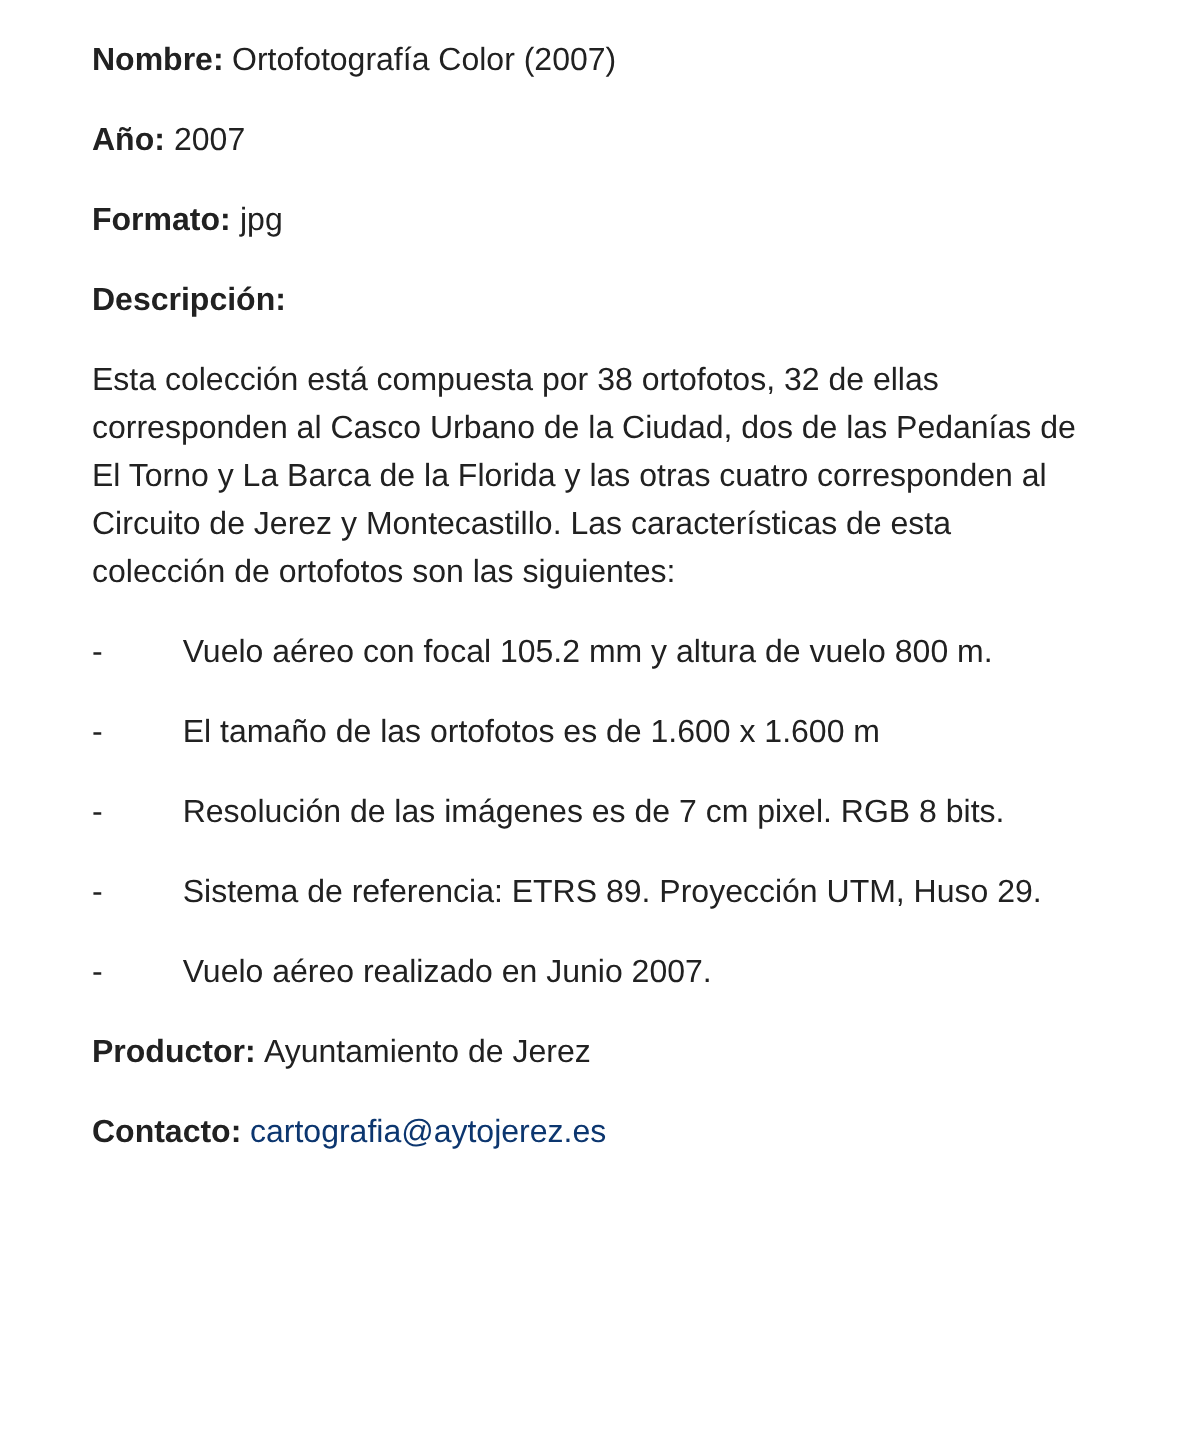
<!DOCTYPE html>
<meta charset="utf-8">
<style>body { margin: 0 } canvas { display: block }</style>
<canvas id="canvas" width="1184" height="1450"></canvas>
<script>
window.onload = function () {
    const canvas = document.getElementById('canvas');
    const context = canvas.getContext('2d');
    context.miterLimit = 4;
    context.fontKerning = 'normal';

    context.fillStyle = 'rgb(255, 255, 255)';
    context.fillRect(0, 0, 1184, 1450);
    context.font = 'bold 32px Liberation Sans';
    context.fillStyle = 'rgb(33, 33, 33)';
    context.fillText('Nombre:', 92, 70);
    context.font = '32px Liberation Sans';
    context.fillText('Ortofotografía Color (2007)', 232, 70);
    context.font = 'bold 32px Liberation Sans';
    context.fillText('Año:', 92, 150);
    context.font = '32px Liberation Sans';
    context.fillText('2007', 174, 150);
    context.font = 'bold 32px Liberation Sans';
    context.fillText('Formato:', 92, 230);
    context.font = '32px Liberation Sans';
    context.fillText('jpg', 240, 230);
    context.font = 'bold 32px Liberation Sans';
    context.fillText('Descripción:', 92, 310);
    context.font = '32px Liberation Sans';
    context.fillText('Esta colección está compuesta por 38 ortofotos, 32 de ellas', 92, 390);
    context.fillText('corresponden al Casco Urbano de la Ciudad, dos de las Pedanías de', 92, 438);
    context.fillText('El Torno y La Barca de la Florida y las otras cuatro corresponden al', 92, 486);
    context.fillText('Circuito de Jerez y Montecastillo. Las características de esta', 92, 534);
    context.fillText('colección de ortofotos son las siguientes:', 92, 582);
    context.fillText('-         Vuelo aéreo con focal 105.2 mm y altura de vuelo 800 m.', 92, 662);
    context.fillText('-         El tamaño de las ortofotos es de 1.600 x 1.600 m', 92, 742);
    context.fillText('-         Resolución de las imágenes es de 7 cm pixel. RGB 8 bits.', 92, 822);
    context.fillText('-         Sistema de referencia: ETRS 89. Proyección UTM, Huso 29.', 92, 902);
    context.fillText('-         Vuelo aéreo realizado en Junio 2007.', 92, 982);
    context.font = 'bold 32px Liberation Sans';
    context.fillText('Productor:', 92, 1062);
    context.font = '32px Liberation Sans';
    context.fillText('Ayuntamiento de Jerez', 264, 1062);
    context.font = 'bold 32px Liberation Sans';
    context.fillText('Contacto:', 92, 1142);
    context.font = '32px Liberation Sans';
    context.fillStyle = 'rgb(12, 54, 111)';
    context.fillText('cartografia@aytojerez.es', 250, 1142);
};
</script>
